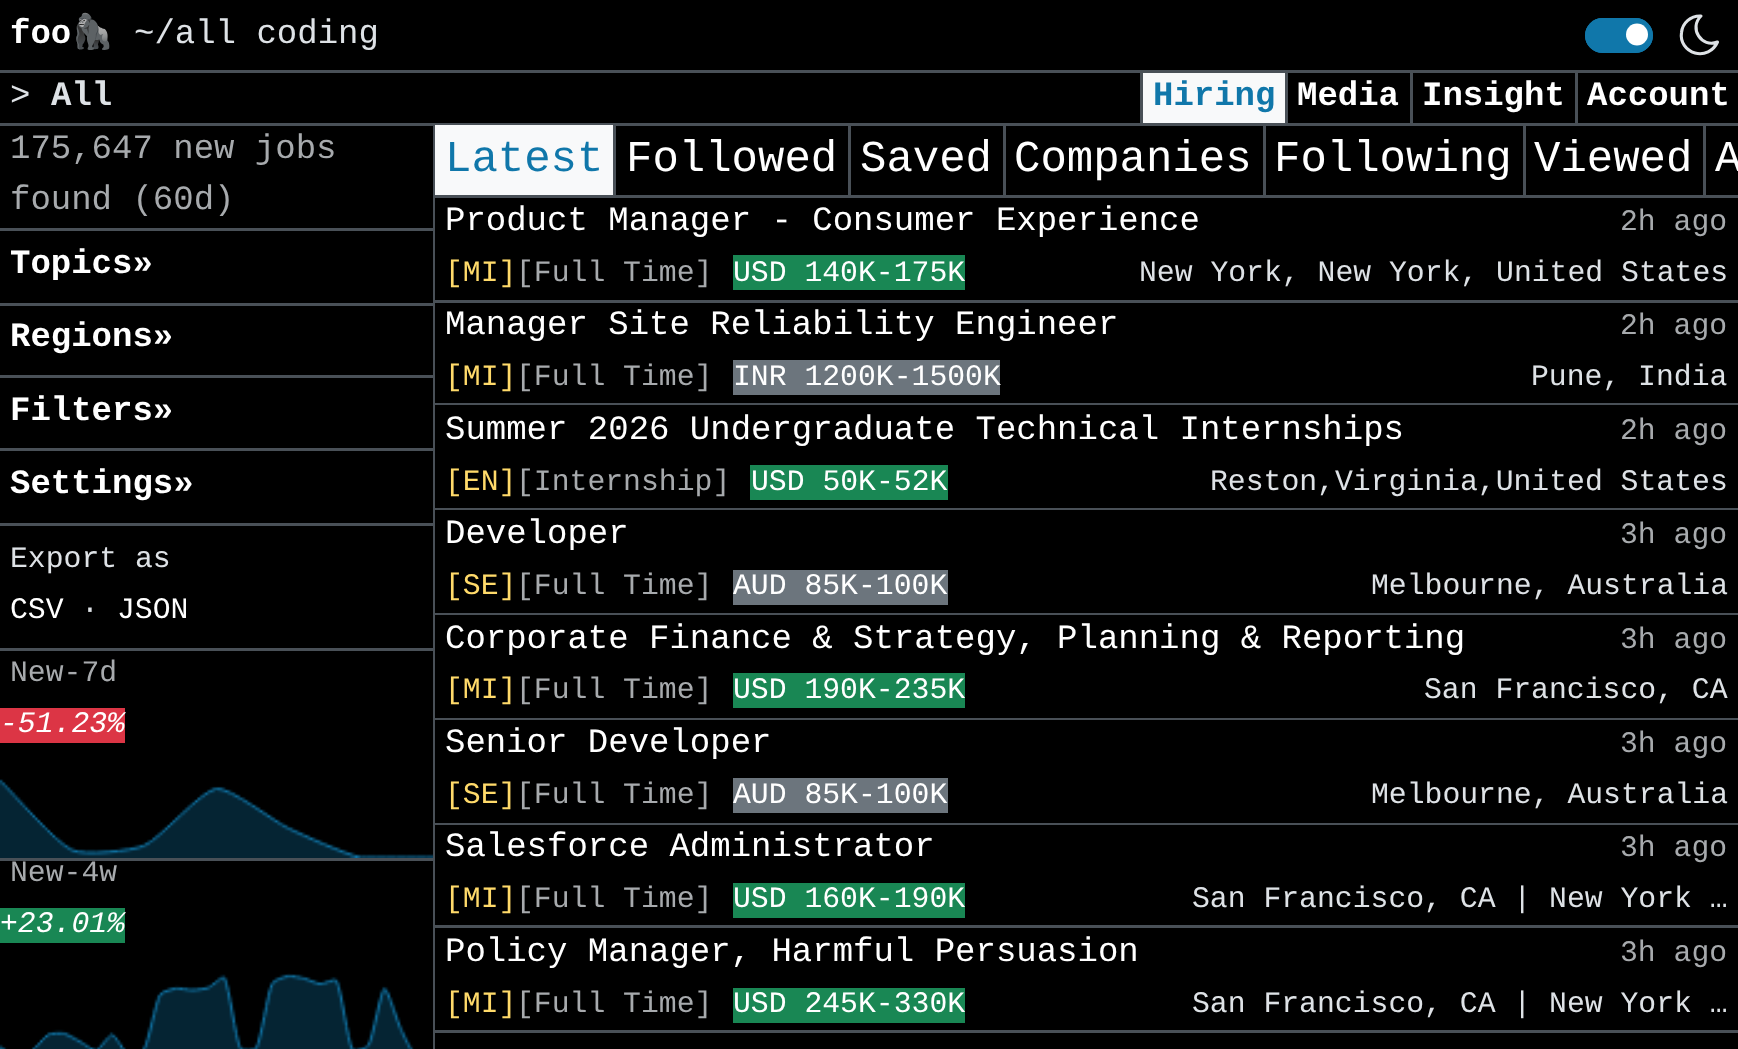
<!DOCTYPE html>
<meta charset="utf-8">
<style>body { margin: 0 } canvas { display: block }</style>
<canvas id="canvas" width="1738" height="1049"></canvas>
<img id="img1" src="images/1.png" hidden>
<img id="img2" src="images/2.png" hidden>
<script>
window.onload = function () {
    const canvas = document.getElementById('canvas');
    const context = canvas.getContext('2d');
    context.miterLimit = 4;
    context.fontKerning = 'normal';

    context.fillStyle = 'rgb(0, 0, 0)';
    context.fillRect(0, 0, 1738, 1049);
    context.fillStyle = 'rgb(73, 80, 87)';
    context.fillRect(0, 70, 1738, 3);
    context.fillStyle = 'rgb(16, 119, 170)';
    context.beginPath();
    context.roundRect(1585, 18, 68, 35, 17.5);
    context.fill();
    context.fillStyle = 'rgb(255, 255, 255)';
    context.beginPath();
    context.arc(1637, 34.5, 11, 0, 2 * Math.PI);
    context.fill();
    context.beginPath();
    context.roundRect(1586.5, 19.5, 65, 32, 16);
    context.strokeStyle = 'rgb(16, 119, 170)';
    context.lineWidth = 3;
    context.stroke();
    context.beginPath();
    context.moveTo(1700, 16);
    context.lineTo(1701, 16);
    context.bezierCurveTo(1688.5, 28, 1701.5, 48.5, 1717.5, 42);
    context.bezierCurveTo(1713.5, 51, 1704, 55.5, 1695, 53);
    context.bezierCurveTo(1686, 50.5, 1680, 42, 1681.5, 32.5);
    context.bezierCurveTo(1682.5, 23, 1690.5, 16, 1700, 16);
    context.closePath();
    context.strokeStyle = 'rgb(222, 226, 230)';
    context.lineWidth = 3.1;
    context.lineCap = 'round';
    context.lineJoin = 'round';
    context.stroke();
    context.fillStyle = 'rgb(73, 80, 87)';
    context.fillRect(0, 123, 1738, 3);
    context.fillStyle = 'rgb(248, 249, 250)';
    context.fillRect(1143, 73, 142, 50);
    context.fillStyle = 'rgb(73, 80, 87)';
    context.fillRect(1140, 73, 3, 50);
    context.fillRect(1285, 73, 3, 50);
    context.fillRect(1410, 73, 3, 50);
    context.fillRect(1575, 73, 3, 50);
    context.fillRect(433, 125, 2, 924);
    context.fillRect(0, 228, 433, 3);
    context.fillRect(0, 303, 433, 3);
    context.fillRect(0, 375, 433, 3);
    context.fillRect(0, 448, 433, 3);
    context.fillRect(0, 523, 433, 3);
    context.fillRect(0, 648, 433, 3);
    context.fillStyle = 'rgb(220, 53, 69)';
    context.fillRect(0, 708, 125, 35);
    context.fillStyle = 'rgb(73, 80, 87)';
    context.fillRect(0, 858, 433, 3);
    context.drawImage(document.getElementById('img1'), 0, 779, 433, 79);
    context.fillStyle = 'rgb(25, 135, 84)';
    context.fillRect(0, 908, 125, 35);
    context.drawImage(document.getElementById('img2'), 0, 973, 414, 76);
    context.fillStyle = 'rgb(73, 80, 87)';
    context.fillRect(435, 195, 1303, 3);
    context.fillStyle = 'rgb(248, 249, 250)';
    context.fillRect(435, 125, 178, 70);
    context.fillStyle = 'rgb(73, 80, 87)';
    context.fillRect(613, 125, 3, 70);
    context.fillRect(848, 125, 3, 70);
    context.fillRect(1003, 125, 3, 70);
    context.fillRect(1263, 125, 3, 70);
    context.fillRect(1523, 125, 3, 70);
    context.fillRect(1703, 125, 3, 70);
    context.fillRect(435, 300, 1303, 3);
    context.fillStyle = 'rgb(25, 135, 84)';
    context.fillRect(733, 255, 232, 35);
    context.fillStyle = 'rgb(73, 80, 87)';
    context.fillRect(435, 403, 1303, 2);
    context.fillStyle = 'rgb(108, 117, 125)';
    context.fillRect(733, 360, 267, 35);
    context.fillStyle = 'rgb(73, 80, 87)';
    context.fillRect(435, 508, 1303, 2);
    context.fillStyle = 'rgb(25, 135, 84)';
    context.fillRect(750, 465, 198, 35);
    context.fillStyle = 'rgb(73, 80, 87)';
    context.fillRect(435, 613, 1303, 2);
    context.fillStyle = 'rgb(108, 117, 125)';
    context.fillRect(733, 570, 215, 35);
    context.fillStyle = 'rgb(73, 80, 87)';
    context.fillRect(435, 718, 1303, 2);
    context.fillStyle = 'rgb(25, 135, 84)';
    context.fillRect(733, 673, 232, 35);
    context.fillStyle = 'rgb(73, 80, 87)';
    context.fillRect(435, 823, 1303, 2);
    context.fillStyle = 'rgb(108, 117, 125)';
    context.fillRect(733, 778, 215, 35);
    context.fillStyle = 'rgb(73, 80, 87)';
    context.fillRect(435, 925, 1303, 3);
    context.fillStyle = 'rgb(25, 135, 84)';
    context.fillRect(733, 883, 232, 35);
    context.fillStyle = 'rgb(73, 80, 87)';
    context.fillRect(435, 1030, 1303, 3);
    context.fillStyle = 'rgb(25, 135, 84)';
    context.fillRect(733, 988, 232, 35);
    context.font = 'bold 34px Liberation Mono';
    context.fillStyle = 'rgb(255, 255, 255)';
    context.fillText('foo', 10, 43);
    context.font = 'bold 34px Noto Color Emoji';
    context.fillText('🦍', 71, 43);
    context.font = '34px Liberation Mono';
    context.fillStyle = 'rgb(222, 226, 230)';
    context.fillText('~/all coding', 134, 43);
    context.fillText('>', 10, 105);
    context.font = 'bold 34px Liberation Mono';
    context.fillText('All', 51, 105);
    context.fillStyle = 'rgb(16, 119, 170)';
    context.fillText('Hiring', 1153, 105);
    context.fillStyle = 'rgb(255, 255, 255)';
    context.fillText('Media', 1297, 105);
    context.fillText('Insight', 1422, 105);
    context.fillText('Account', 1587, 105);
    context.font = '34px Liberation Mono';
    context.fillStyle = 'rgb(167, 170, 173)';
    context.fillText('175,647 new jobs', 10, 158);
    context.fillText('found (60d)', 10, 209);
    context.font = 'bold 34px Liberation Mono';
    context.fillStyle = 'rgb(255, 255, 255)';
    context.fillText('Topics»', 10, 273);
    context.fillText('Regions»', 10, 346);
    context.fillText('Filters»', 10, 420);
    context.fillText('Settings»', 10, 493);
    context.font = '29.75px Liberation Mono';
    context.fillStyle = 'rgb(222, 226, 230)';
    context.fillText('Export as', 10, 567);
    context.fillStyle = 'rgb(255, 255, 255)';
    context.fillText('CSV', 10, 618);
    context.fillStyle = 'rgb(222, 226, 230)';
    context.fillText('·', 81, 618);
    context.fillStyle = 'rgb(255, 255, 255)';
    context.fillText('JSON', 117, 618);
    context.fillStyle = 'rgb(167, 170, 173)';
    context.fillText('New-7d', 10, 681);
    context.font = 'italic 29.75px Liberation Mono';
    context.fillStyle = 'rgb(255, 255, 255)';
    context.fillText('-51.23%', 0, 732);
    context.font = '29.75px Liberation Mono';
    context.fillStyle = 'rgb(167, 170, 173)';
    context.fillText('New-4w', 10, 881);
    context.font = 'italic 29.75px Liberation Mono';
    context.fillStyle = 'rgb(255, 255, 255)';
    context.fillText('+23.01%', 0, 932);
    context.font = '44px Liberation Mono';
    context.fillStyle = 'rgb(16, 119, 170)';
    context.fillText('Latest', 445, 171);
    context.fillStyle = 'rgb(255, 255, 255)';
    context.fillText('Followed', 626, 171);
    context.fillText('Saved', 860, 171);
    context.fillText('Companies', 1014, 171);
    context.fillText('Following', 1274, 171);
    context.fillText('Viewed', 1534, 171);
    context.fillText('A', 1715, 171);
    context.font = '34px Liberation Mono';
    context.fillText('Product Manager - Consumer Experience', 445, 230);
    context.font = '29.75px Liberation Mono';
    context.fillStyle = 'rgb(167, 170, 173)';
    context.fillText('2h ago', 1620, 230);
    context.fillStyle = 'rgb(255, 218, 106)';
    context.fillText('[MI]', 445, 281);
    context.fillStyle = 'rgb(167, 170, 173)';
    context.fillText('[Full Time]', 516, 281);
    context.fillStyle = 'rgb(255, 255, 255)';
    context.fillText('USD 140K-175K', 733, 281);
    context.fillStyle = 'rgb(222, 226, 230)';
    context.fillText('New York, New York, United States', 1139, 281);
    context.font = '34px Liberation Mono';
    context.fillStyle = 'rgb(255, 255, 255)';
    context.fillText('Manager Site Reliability Engineer', 445, 334);
    context.font = '29.75px Liberation Mono';
    context.fillStyle = 'rgb(167, 170, 173)';
    context.fillText('2h ago', 1620, 334);
    context.fillStyle = 'rgb(255, 218, 106)';
    context.fillText('[MI]', 445, 385);
    context.fillStyle = 'rgb(167, 170, 173)';
    context.fillText('[Full Time]', 516, 385);
    context.fillStyle = 'rgb(255, 255, 255)';
    context.fillText('INR 1200K-1500K', 733, 385);
    context.fillStyle = 'rgb(222, 226, 230)';
    context.fillText('Pune, India', 1531, 385);
    context.font = '34px Liberation Mono';
    context.fillStyle = 'rgb(255, 255, 255)';
    context.fillText('Summer 2026 Undergraduate Technical Internships', 445, 439);
    context.font = '29.75px Liberation Mono';
    context.fillStyle = 'rgb(167, 170, 173)';
    context.fillText('2h ago', 1620, 439);
    context.fillStyle = 'rgb(255, 218, 106)';
    context.fillText('[EN]', 445, 490);
    context.fillStyle = 'rgb(167, 170, 173)';
    context.fillText('[Internship]', 516, 490);
    context.fillStyle = 'rgb(255, 255, 255)';
    context.fillText('USD 50K-52K', 751, 490);
    context.fillStyle = 'rgb(222, 226, 230)';
    context.fillText('Reston,Virginia,United States', 1210, 490);
    context.font = '34px Liberation Mono';
    context.fillStyle = 'rgb(255, 255, 255)';
    context.fillText('Developer', 445, 543);
    context.font = '29.75px Liberation Mono';
    context.fillStyle = 'rgb(167, 170, 173)';
    context.fillText('3h ago', 1620, 543);
    context.fillStyle = 'rgb(255, 218, 106)';
    context.fillText('[SE]', 445, 594);
    context.fillStyle = 'rgb(167, 170, 173)';
    context.fillText('[Full Time]', 516, 594);
    context.fillStyle = 'rgb(255, 255, 255)';
    context.fillText('AUD 85K-100K', 733, 594);
    context.fillStyle = 'rgb(222, 226, 230)';
    context.fillText('Melbourne, Australia', 1371, 594);
    context.font = '34px Liberation Mono';
    context.fillStyle = 'rgb(255, 255, 255)';
    context.fillText('Corporate Finance & Strategy, Planning & Reporting', 445, 648);
    context.font = '29.75px Liberation Mono';
    context.fillStyle = 'rgb(167, 170, 173)';
    context.fillText('3h ago', 1620, 648);
    context.fillStyle = 'rgb(255, 218, 106)';
    context.fillText('[MI]', 445, 698);
    context.fillStyle = 'rgb(167, 170, 173)';
    context.fillText('[Full Time]', 516, 698);
    context.fillStyle = 'rgb(255, 255, 255)';
    context.fillText('USD 190K-235K', 733, 698);
    context.fillStyle = 'rgb(222, 226, 230)';
    context.fillText('San Francisco, CA', 1424, 698);
    context.font = '34px Liberation Mono';
    context.fillStyle = 'rgb(255, 255, 255)';
    context.fillText('Senior Developer', 445, 752);
    context.font = '29.75px Liberation Mono';
    context.fillStyle = 'rgb(167, 170, 173)';
    context.fillText('3h ago', 1620, 752);
    context.fillStyle = 'rgb(255, 218, 106)';
    context.fillText('[SE]', 445, 803);
    context.fillStyle = 'rgb(167, 170, 173)';
    context.fillText('[Full Time]', 516, 803);
    context.fillStyle = 'rgb(255, 255, 255)';
    context.fillText('AUD 85K-100K', 733, 803);
    context.fillStyle = 'rgb(222, 226, 230)';
    context.fillText('Melbourne, Australia', 1371, 803);
    context.font = '34px Liberation Mono';
    context.fillStyle = 'rgb(255, 255, 255)';
    context.fillText('Salesforce Administrator', 445, 856);
    context.font = '29.75px Liberation Mono';
    context.fillStyle = 'rgb(167, 170, 173)';
    context.fillText('3h ago', 1620, 856);
    context.fillStyle = 'rgb(255, 218, 106)';
    context.fillText('[MI]', 445, 907);
    context.fillStyle = 'rgb(167, 170, 173)';
    context.fillText('[Full Time]', 516, 907);
    context.fillStyle = 'rgb(255, 255, 255)';
    context.fillText('USD 160K-190K', 733, 907);
    context.fillStyle = 'rgb(222, 226, 230)';
    context.fillText('San Francisco, CA | New York …', 1192, 907);
    context.font = '34px Liberation Mono';
    context.fillStyle = 'rgb(255, 255, 255)';
    context.fillText('Policy Manager, Harmful Persuasion', 445, 961);
    context.font = '29.75px Liberation Mono';
    context.fillStyle = 'rgb(167, 170, 173)';
    context.fillText('3h ago', 1620, 961);
    context.fillStyle = 'rgb(255, 218, 106)';
    context.fillText('[MI]', 445, 1012);
    context.fillStyle = 'rgb(167, 170, 173)';
    context.fillText('[Full Time]', 516, 1012);
    context.fillStyle = 'rgb(255, 255, 255)';
    context.fillText('USD 245K-330K', 733, 1012);
    context.fillStyle = 'rgb(222, 226, 230)';
    context.fillText('San Francisco, CA | New York …', 1192, 1012);
};
</script>
